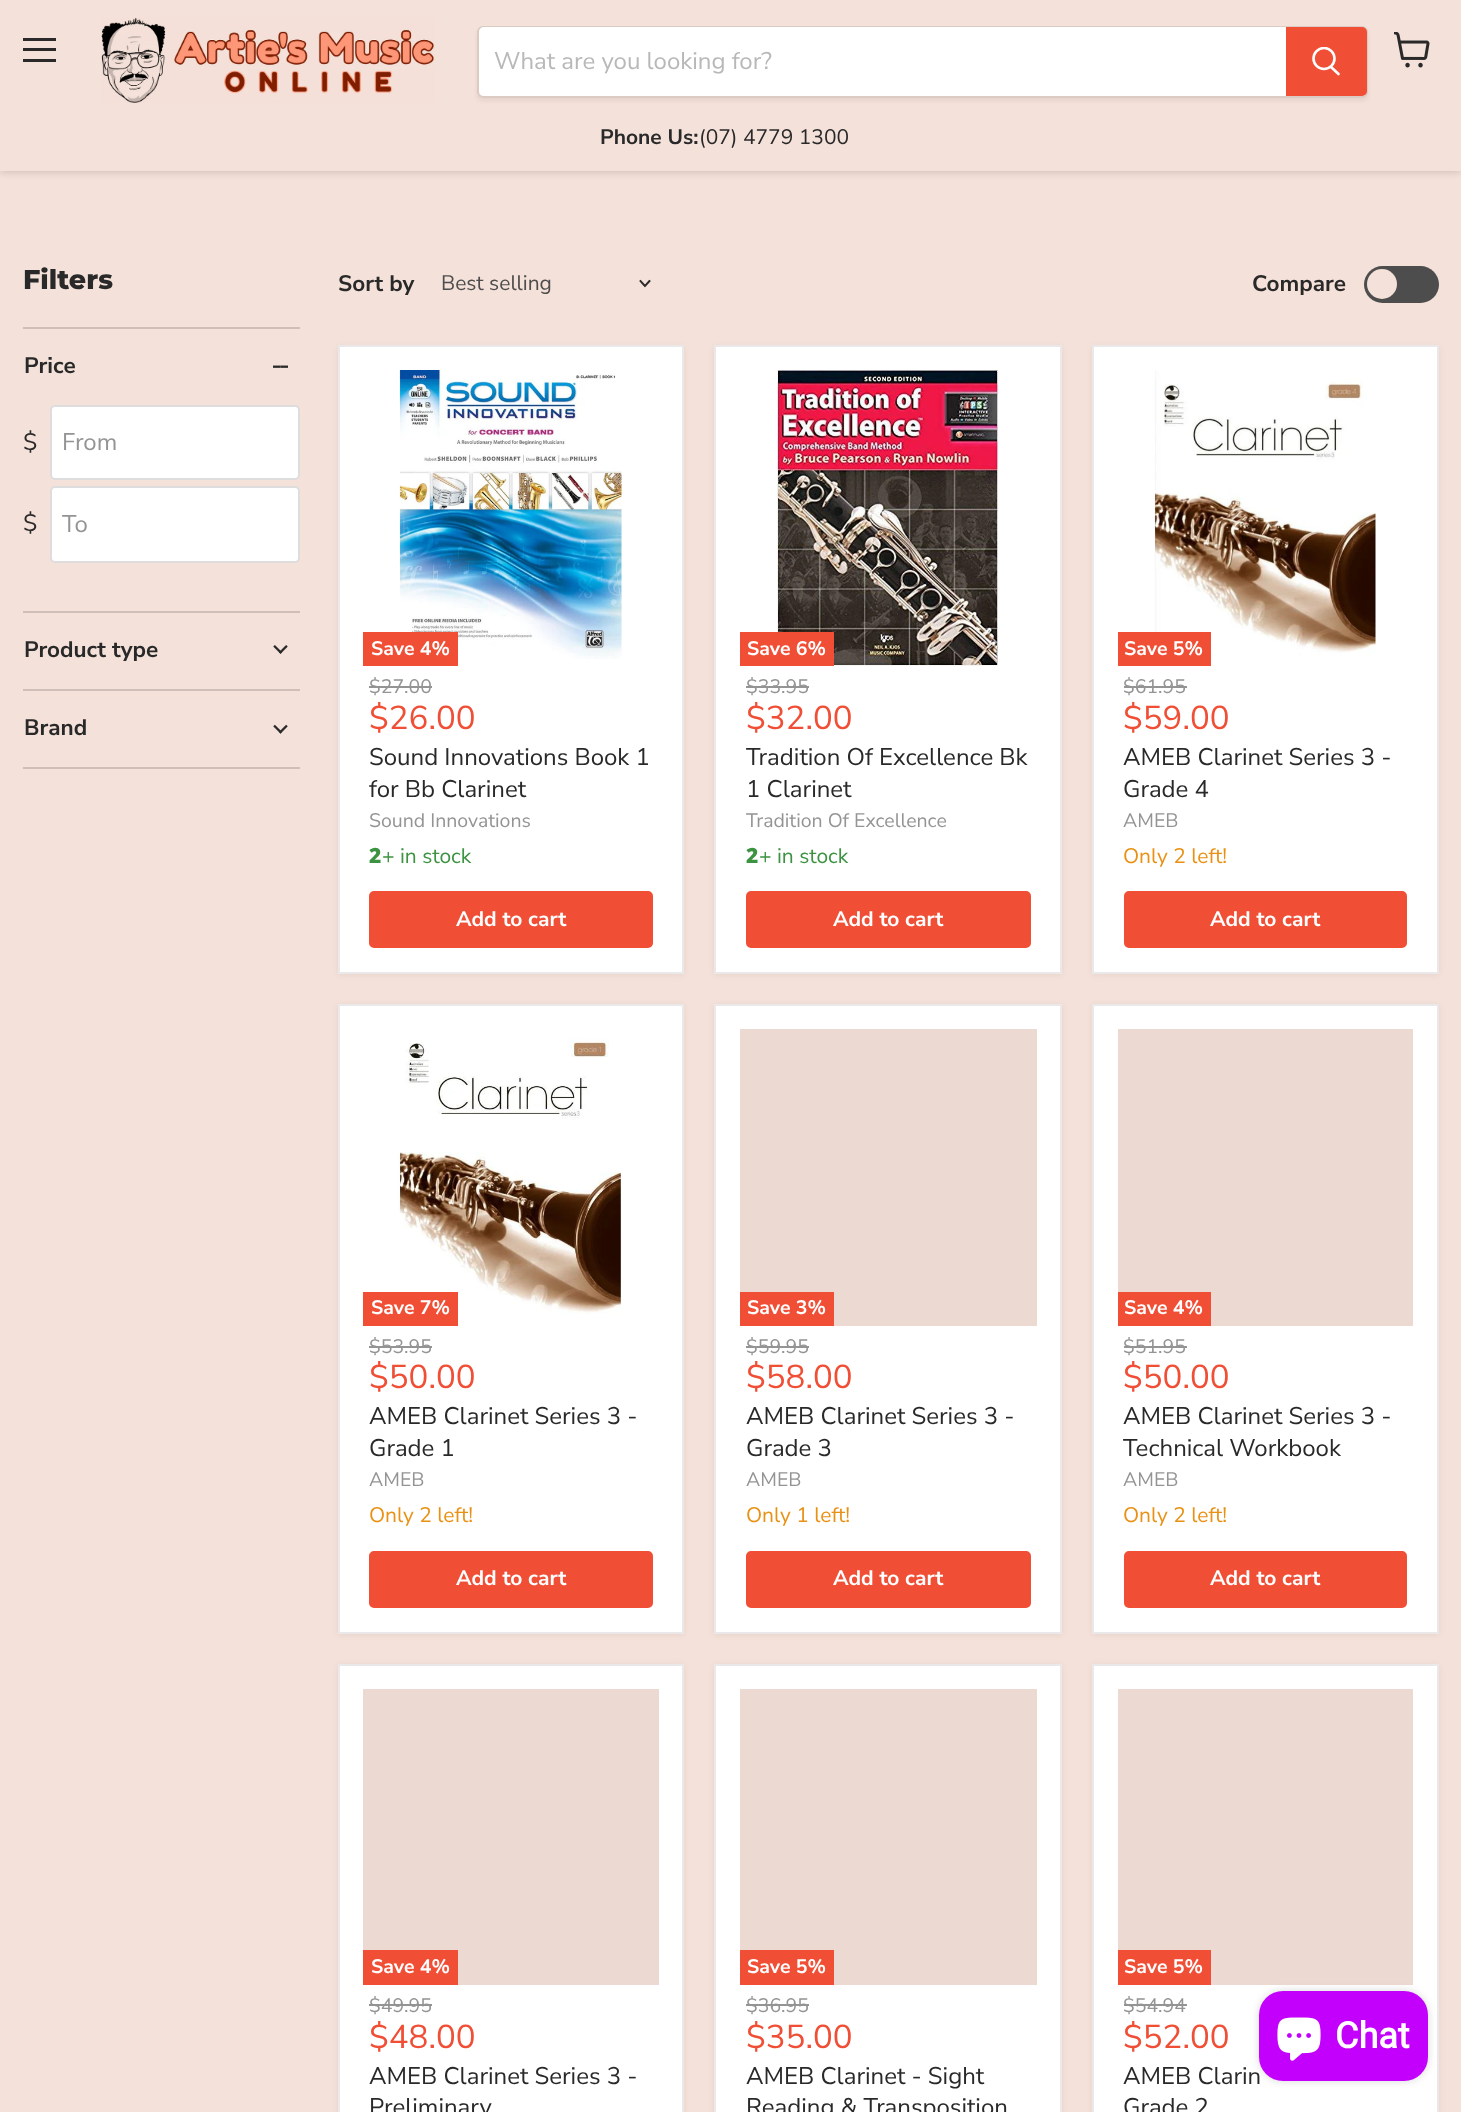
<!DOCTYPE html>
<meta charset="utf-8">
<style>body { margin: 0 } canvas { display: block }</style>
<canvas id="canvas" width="1461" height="2112"></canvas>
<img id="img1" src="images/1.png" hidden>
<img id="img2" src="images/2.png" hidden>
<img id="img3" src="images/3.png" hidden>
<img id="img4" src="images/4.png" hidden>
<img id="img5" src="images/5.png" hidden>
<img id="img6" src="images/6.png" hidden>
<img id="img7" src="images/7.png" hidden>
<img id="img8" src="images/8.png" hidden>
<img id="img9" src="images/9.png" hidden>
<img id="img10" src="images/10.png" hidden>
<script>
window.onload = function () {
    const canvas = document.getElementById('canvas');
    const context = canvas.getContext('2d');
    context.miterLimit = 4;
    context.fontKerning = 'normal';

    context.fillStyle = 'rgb(244, 225, 217)';
    context.fillRect(0, 0, 1461, 2112);
    context.fillStyle = 'rgba(122, 113, 109, 0.25)';
    context.filter = 'blur(3px)';
    context.beginPath();
    context.rect(0, 2, 1461, 171);
    context.fill();
    context.filter = 'none';
    context.fillStyle = 'rgb(244, 225, 217)';
    context.fillRect(0, 0, 1461, 171);
    context.fillStyle = 'rgb(41, 41, 41)';
    context.fillRect(23, 38, 33, 3);
    context.fillRect(23, 48, 33, 3);
    context.fillRect(23, 59, 33, 3);
    context.drawImage(document.getElementById('img1'), 101, 17, 334, 86);
    context.save();
    context.beginPath();
    context.moveTo(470, 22);
    context.lineTo(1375, 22);
    context.lineTo(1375, 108);
    context.lineTo(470, 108);
    context.closePath();
    context.moveTo(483, 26);
    context.lineTo(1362, 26);
    context.bezierCurveTo(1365.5, 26, 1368, 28.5, 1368, 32);
    context.lineTo(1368, 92);
    context.bezierCurveTo(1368, 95.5, 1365.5, 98, 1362, 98);
    context.lineTo(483, 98);
    context.bezierCurveTo(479.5, 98, 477, 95.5, 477, 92);
    context.lineTo(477, 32);
    context.bezierCurveTo(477, 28.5, 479.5, 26, 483, 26);
    context.closePath();
    context.clip('evenodd');
    context.fillStyle = 'rgba(122, 113, 109, 0.11)';
    context.filter = 'blur(2px)';
    context.beginPath();
    context.roundRect(477, 29, 891, 72, 6);
    context.fill();
    context.filter = 'none';
    context.restore();
    context.beginPath();
    context.roundRect(478, 27, 889, 70, 5);
    context.strokeStyle = 'rgba(122, 113, 109, 0.2)';
    context.lineWidth = 2;
    context.stroke();
    context.fillStyle = 'rgb(255, 255, 255)';
    context.beginPath();
    context.roundRect(479, 27, 807, 69, [5, 0, 0, 5]);
    context.fill();
    context.fillStyle = 'rgb(240, 79, 54)';
    context.beginPath();
    context.roundRect(1287, 28, 79, 67, [0, 4, 4, 0]);
    context.fill();
    context.strokeStyle = 'rgb(240, 79, 54)';
    context.stroke();
    context.beginPath();
    context.moveTo(1338.5, 74);
    context.lineTo(1331, 67);
    context.strokeStyle = 'rgb(255, 255, 255)';
    context.lineWidth = 2.6;
    context.lineCap = 'round';
    context.stroke();
    context.save();
    context.beginPath();
    context.rect(1311, 47, 30, 31);
    context.clip();
    context.beginPath();
    context.arc(1324, 58.5, 10.5, 0, 2 * Math.PI);
    context.stroke();
    context.restore();
    context.drawImage(document.getElementById('img2'), 1394, 32, 36, 36);
    context.fillStyle = 'rgb(207, 191, 184)';
    context.fillRect(23, 327, 277, 2);
    context.drawImage(document.getElementById('img3'), 273, 365, 15, 3);
    context.fillStyle = 'rgb(255, 255, 255)';
    context.beginPath();
    context.roundRect(51, 406, 248, 73, 4);
    context.fill();
    context.strokeStyle = 'rgb(221, 221, 221)';
    context.lineWidth = 2;
    context.stroke();
    context.beginPath();
    context.roundRect(51, 487, 248, 75, 4);
    context.fill();
    context.stroke();
    context.fillStyle = 'rgb(207, 191, 184)';
    context.fillRect(23, 611, 277, 2);
    context.drawImage(document.getElementById('img4'), 273, 645, 15, 9);
    context.fillRect(23, 689, 277, 2);
    context.fillRect(23, 767, 277, 2);
    context.drawImage(document.getElementById('img5'), 273, 724, 15, 10);
    context.beginPath();
    context.moveTo(645, 286);
    context.lineTo(649.5, 281);
    context.moveTo(645, 286);
    context.lineTo(640.5, 281);
    context.strokeStyle = 'rgb(41, 41, 41)';
    context.lineWidth = 1.9;
    context.lineCap = 'square';
    context.stroke();
    context.fillStyle = 'rgb(77, 77, 77)';
    context.beginPath();
    context.roundRect(1364, 266, 75, 37, 18.5);
    context.fill();
    context.fillStyle = 'rgb(244, 225, 217)';
    context.beginPath();
    context.arc(1382, 284, 15, 0, 2 * Math.PI);
    context.fill();
    context.fillStyle = 'rgba(122, 113, 109, 0.11)';
    context.filter = 'blur(3px)';
    context.beginPath();
    context.rect(338, 347, 346, 628);
    context.fill();
    context.filter = 'none';
    context.fillStyle = 'rgb(255, 255, 255)';
    context.beginPath();
    context.rect(339, 346, 344, 627);
    context.fill();
    context.strokeStyle = 'rgb(234, 232, 232)';
    context.lineWidth = 2;
    context.stroke();
    context.drawImage(document.getElementById('img6'), 399, 370, 223, 289);
    context.fillStyle = 'rgb(240, 79, 54)';
    context.fillRect(363, 632, 95, 34);
    context.fillStyle = 'rgb(148, 148, 148)';
    context.fillRect(369, 686, 63, 2);
    context.fillStyle = 'rgb(240, 79, 54)';
    context.beginPath();
    context.roundRect(370, 892, 282, 55, 4);
    context.fill();
    context.strokeStyle = 'rgb(240, 79, 54)';
    context.stroke();
    context.fillStyle = 'rgba(122, 113, 109, 0.11)';
    context.filter = 'blur(3px)';
    context.beginPath();
    context.rect(714, 347, 348, 628);
    context.fill();
    context.filter = 'none';
    context.fillStyle = 'rgb(255, 255, 255)';
    context.beginPath();
    context.rect(715, 346, 346, 627);
    context.fill();
    context.strokeStyle = 'rgb(234, 232, 232)';
    context.stroke();
    context.drawImage(document.getElementById('img7'), 777, 370, 222, 296);
    context.fillStyle = 'rgb(240, 79, 54)';
    context.fillRect(740, 632, 94, 34);
    context.fillStyle = 'rgb(148, 148, 148)';
    context.fillRect(746, 686, 63, 2);
    context.fillStyle = 'rgb(240, 79, 54)';
    context.beginPath();
    context.roundRect(747, 892, 283, 55, 4);
    context.fill();
    context.strokeStyle = 'rgb(240, 79, 54)';
    context.stroke();
    context.fillStyle = 'rgba(122, 113, 109, 0.11)';
    context.filter = 'blur(3px)';
    context.beginPath();
    context.rect(1092, 347, 347, 628);
    context.fill();
    context.filter = 'none';
    context.fillStyle = 'rgb(255, 255, 255)';
    context.beginPath();
    context.rect(1093, 346, 345, 627);
    context.fill();
    context.strokeStyle = 'rgb(234, 232, 232)';
    context.stroke();
    context.drawImage(document.getElementById('img8'), 1154, 370, 222, 295);
    context.fillStyle = 'rgb(240, 79, 54)';
    context.fillRect(1118, 632, 93, 34);
    context.fillStyle = 'rgb(148, 148, 148)';
    context.fillRect(1124, 686, 63, 2);
    context.fillStyle = 'rgb(240, 79, 54)';
    context.beginPath();
    context.roundRect(1125, 892, 281, 55, 4);
    context.fill();
    context.strokeStyle = 'rgb(240, 79, 54)';
    context.stroke();
    context.fillStyle = 'rgba(122, 113, 109, 0.11)';
    context.filter = 'blur(3px)';
    context.beginPath();
    context.rect(338, 1005, 346, 630);
    context.fill();
    context.filter = 'none';
    context.fillStyle = 'rgb(255, 255, 255)';
    context.beginPath();
    context.rect(339, 1005, 344, 628);
    context.fill();
    context.strokeStyle = 'rgb(234, 232, 232)';
    context.stroke();
    context.drawImage(document.getElementById('img9'), 398, 1038, 224, 276);
    context.fillStyle = 'rgb(240, 79, 54)';
    context.fillRect(363, 1292, 95, 34);
    context.fillStyle = 'rgb(148, 148, 148)';
    context.fillRect(369, 1346, 63, 2);
    context.fillStyle = 'rgb(240, 79, 54)';
    context.beginPath();
    context.roundRect(370, 1552, 282, 55, 4);
    context.fill();
    context.strokeStyle = 'rgb(240, 79, 54)';
    context.stroke();
    context.fillStyle = 'rgba(122, 113, 109, 0.11)';
    context.filter = 'blur(3px)';
    context.beginPath();
    context.rect(714, 1005, 348, 630);
    context.fill();
    context.filter = 'none';
    context.fillStyle = 'rgb(255, 255, 255)';
    context.beginPath();
    context.rect(715, 1005, 346, 628);
    context.fill();
    context.strokeStyle = 'rgb(234, 232, 232)';
    context.stroke();
    context.fillStyle = 'rgb(236, 218, 210)';
    context.fillRect(740, 1029, 297, 297);
    context.fillStyle = 'rgb(240, 79, 54)';
    context.fillRect(740, 1292, 94, 34);
    context.fillStyle = 'rgb(148, 148, 148)';
    context.fillRect(746, 1346, 63, 2);
    context.fillStyle = 'rgb(240, 79, 54)';
    context.beginPath();
    context.roundRect(747, 1552, 283, 55, 4);
    context.fill();
    context.strokeStyle = 'rgb(240, 79, 54)';
    context.stroke();
    context.fillStyle = 'rgba(122, 113, 109, 0.11)';
    context.filter = 'blur(3px)';
    context.beginPath();
    context.rect(1092, 1005, 347, 630);
    context.fill();
    context.filter = 'none';
    context.fillStyle = 'rgb(255, 255, 255)';
    context.beginPath();
    context.rect(1093, 1005, 345, 628);
    context.fill();
    context.strokeStyle = 'rgb(234, 232, 232)';
    context.stroke();
    context.fillStyle = 'rgb(236, 218, 210)';
    context.fillRect(1118, 1029, 295, 297);
    context.fillStyle = 'rgb(240, 79, 54)';
    context.fillRect(1118, 1292, 93, 34);
    context.fillStyle = 'rgb(148, 148, 148)';
    context.fillRect(1124, 1346, 63, 2);
    context.fillStyle = 'rgb(240, 79, 54)';
    context.beginPath();
    context.roundRect(1125, 1552, 281, 55, 4);
    context.fill();
    context.strokeStyle = 'rgb(240, 79, 54)';
    context.stroke();
    context.fillStyle = 'rgba(122, 113, 109, 0.11)';
    context.filter = 'blur(3px)';
    context.beginPath();
    context.rect(338, 1665, 346, 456);
    context.fill();
    context.filter = 'none';
    context.fillStyle = 'rgb(255, 255, 255)';
    context.beginPath();
    context.rect(339, 1665, 344, 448);
    context.fill();
    context.strokeStyle = 'rgb(234, 232, 232)';
    context.stroke();
    context.fillStyle = 'rgb(236, 218, 210)';
    context.fillRect(363, 1689, 296, 296);
    context.fillStyle = 'rgb(240, 79, 54)';
    context.fillRect(363, 1950, 95, 35);
    context.fillStyle = 'rgb(148, 148, 148)';
    context.fillRect(369, 2004, 63, 2);
    context.fillStyle = 'rgba(122, 113, 109, 0.11)';
    context.filter = 'blur(3px)';
    context.beginPath();
    context.rect(714, 1665, 348, 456);
    context.fill();
    context.filter = 'none';
    context.fillStyle = 'rgb(255, 255, 255)';
    context.beginPath();
    context.rect(715, 1665, 346, 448);
    context.fill();
    context.stroke();
    context.fillStyle = 'rgb(236, 218, 210)';
    context.fillRect(740, 1689, 297, 296);
    context.fillStyle = 'rgb(240, 79, 54)';
    context.fillRect(740, 1950, 94, 35);
    context.fillStyle = 'rgb(148, 148, 148)';
    context.fillRect(746, 2004, 63, 2);
    context.fillStyle = 'rgba(122, 113, 109, 0.11)';
    context.filter = 'blur(3px)';
    context.beginPath();
    context.rect(1092, 1665, 347, 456);
    context.fill();
    context.filter = 'none';
    context.fillStyle = 'rgb(255, 255, 255)';
    context.beginPath();
    context.rect(1093, 1665, 345, 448);
    context.fill();
    context.stroke();
    context.fillStyle = 'rgb(236, 218, 210)';
    context.fillRect(1118, 1689, 295, 296);
    context.fillStyle = 'rgb(240, 79, 54)';
    context.fillRect(1118, 1950, 93, 35);
    context.fillStyle = 'rgb(148, 148, 148)';
    context.fillRect(1124, 2004, 63, 2);
    context.fillStyle = 'rgba(0, 0, 0, 0.15)';
    context.filter = 'blur(4px)';
    context.beginPath();
    context.roundRect(1259, 1991, 169, 90, 24);
    context.fill();
    context.filter = 'none';
    context.font = '24px Nunito Sans';
    context.fillStyle = 'rgb(184, 184, 184)';
    context.fillText('What are you looking for?', 494, 69);
    context.font = 'bold 21px Nunito Sans';
    context.fillStyle = 'rgb(41, 41, 41)';
    context.fillText('Phone Us:', 600, 144);
    context.font = '21px Nunito Sans';
    context.fillText('(07) 4779 1300', 699, 144);
    context.font = '800 27px Montserrat';
    context.fillText('Filters', 23, 289);
    context.font = 'bold 22.5px Nunito Sans';
    context.fillText('Price', 24, 373);
    context.font = '24px Nunito Sans';
    context.fillText('$', 23, 450);
    context.fillStyle = 'rgb(148, 148, 148)';
    context.fillText('From', 62, 450);
    context.fillStyle = 'rgb(41, 41, 41)';
    context.fillText('$', 23, 531);
    context.fillStyle = 'rgb(148, 148, 148)';
    context.fillText('To', 62, 532);
    context.font = 'bold 22.5px Nunito Sans';
    context.fillStyle = 'rgb(41, 41, 41)';
    context.fillText('Product type', 24, 657);
    context.fillText('Brand', 24, 735);
    context.fillText('Sort by', 338, 291);
    context.font = '21px Nunito Sans';
    context.fillStyle = 'rgb(77, 77, 77)';
    context.fillText('Best selling', 441, 290);
    context.font = 'bold 22.5px Nunito Sans';
    context.fillStyle = 'rgb(41, 41, 41)';
    context.fillText('Compare', 1252, 291);
    context.font = 'bold 19.5px Nunito Sans';
    context.fillStyle = 'rgb(255, 255, 255)';
    context.fillText('Save 4%', 371, 655);
    context.font = '19.5px Nunito Sans';
    context.fillStyle = 'rgb(148, 148, 148)';
    context.fillText('$27.00', 369, 693);
    context.font = '33px Nunito Sans';
    context.fillStyle = 'rgb(240, 79, 54)';
    context.fillText('$26.00', 369, 729);
    context.font = '24px Nunito Sans';
    context.fillStyle = 'rgb(41, 41, 41)';
    context.fillText('Sound Innovations Book 1', 369, 765);
    context.fillText('for Bb Clarinet', 369, 797);
    context.font = '19.5px Nunito Sans';
    context.fillStyle = 'rgb(148, 148, 148)';
    context.fillText('Sound Innovations', 369, 827);
    context.font = '900 21px Noto Sans';
    context.fillStyle = 'rgb(60, 147, 66)';
    context.fillText('2', 369, 863);
    context.font = '21px Nunito Sans';
    context.fillText('+ in stock', 382, 863);
    context.font = 'bold 21px Nunito Sans';
    context.fillStyle = 'rgb(255, 255, 255)';
    context.fillText('Add to cart', 456, 926);
    context.font = 'bold 19.5px Nunito Sans';
    context.fillText('Save 6%', 747, 655);
    context.font = '19.5px Nunito Sans';
    context.fillStyle = 'rgb(148, 148, 148)';
    context.fillText('$33.95', 746, 693);
    context.font = '33px Nunito Sans';
    context.fillStyle = 'rgb(240, 79, 54)';
    context.fillText('$32.00', 746, 729);
    context.font = '24px Nunito Sans';
    context.fillStyle = 'rgb(41, 41, 41)';
    context.fillText('Tradition Of Excellence Bk', 746, 765);
    context.fillText('1 Clarinet', 746, 797);
    context.font = '19.5px Nunito Sans';
    context.fillStyle = 'rgb(148, 148, 148)';
    context.fillText('Tradition Of Excellence', 746, 827);
    context.font = '900 21px Noto Sans';
    context.fillStyle = 'rgb(60, 147, 66)';
    context.fillText('2', 746, 863);
    context.font = '21px Nunito Sans';
    context.fillText('+ in stock', 759, 863);
    context.font = 'bold 21px Nunito Sans';
    context.fillStyle = 'rgb(255, 255, 255)';
    context.fillText('Add to cart', 833, 926);
    context.font = 'bold 19.5px Nunito Sans';
    context.fillText('Save 5%', 1124, 655);
    context.font = '19.5px Nunito Sans';
    context.fillStyle = 'rgb(148, 148, 148)';
    context.fillText('$61.95', 1123, 693);
    context.font = '33px Nunito Sans';
    context.fillStyle = 'rgb(240, 79, 54)';
    context.fillText('$59.00', 1123, 729);
    context.font = '24px Nunito Sans';
    context.fillStyle = 'rgb(41, 41, 41)';
    context.fillText('AMEB Clarinet Series 3 -', 1123, 765);
    context.fillText('Grade 4', 1123, 797);
    context.font = '19.5px Nunito Sans';
    context.fillStyle = 'rgb(148, 148, 148)';
    context.fillText('AMEB', 1123, 827);
    context.font = '21px Nunito Sans';
    context.fillStyle = 'rgb(233, 145, 20)';
    context.fillText('Only 2 left!', 1123, 863);
    context.font = 'bold 21px Nunito Sans';
    context.fillStyle = 'rgb(255, 255, 255)';
    context.fillText('Add to cart', 1210, 926);
    context.font = 'bold 19.5px Nunito Sans';
    context.fillText('Save 7%', 371, 1314);
    context.font = '19.5px Nunito Sans';
    context.fillStyle = 'rgb(148, 148, 148)';
    context.fillText('$53.95', 369, 1353);
    context.font = '33px Nunito Sans';
    context.fillStyle = 'rgb(240, 79, 54)';
    context.fillText('$50.00', 369, 1388);
    context.font = '24px Nunito Sans';
    context.fillStyle = 'rgb(41, 41, 41)';
    context.fillText('AMEB Clarinet Series 3 -', 369, 1424);
    context.fillText('Grade 1', 369, 1456);
    context.font = '19.5px Nunito Sans';
    context.fillStyle = 'rgb(148, 148, 148)';
    context.fillText('AMEB', 369, 1486);
    context.font = '21px Nunito Sans';
    context.fillStyle = 'rgb(233, 145, 20)';
    context.fillText('Only 2 left!', 369, 1522);
    context.font = 'bold 21px Nunito Sans';
    context.fillStyle = 'rgb(255, 255, 255)';
    context.fillText('Add to cart', 456, 1585);
    context.font = 'bold 19.5px Nunito Sans';
    context.fillText('Save 3%', 747, 1314);
    context.font = '19.5px Nunito Sans';
    context.fillStyle = 'rgb(148, 148, 148)';
    context.fillText('$59.95', 746, 1353);
    context.font = '33px Nunito Sans';
    context.fillStyle = 'rgb(240, 79, 54)';
    context.fillText('$58.00', 746, 1388);
    context.font = '24px Nunito Sans';
    context.fillStyle = 'rgb(41, 41, 41)';
    context.fillText('AMEB Clarinet Series 3 -', 746, 1424);
    context.fillText('Grade 3', 746, 1456);
    context.font = '19.5px Nunito Sans';
    context.fillStyle = 'rgb(148, 148, 148)';
    context.fillText('AMEB', 746, 1486);
    context.font = '21px Nunito Sans';
    context.fillStyle = 'rgb(233, 145, 20)';
    context.fillText('Only 1 left!', 746, 1522);
    context.font = 'bold 21px Nunito Sans';
    context.fillStyle = 'rgb(255, 255, 255)';
    context.fillText('Add to cart', 833, 1585);
    context.font = 'bold 19.5px Nunito Sans';
    context.fillText('Save 4%', 1124, 1314);
    context.font = '19.5px Nunito Sans';
    context.fillStyle = 'rgb(148, 148, 148)';
    context.fillText('$51.95', 1123, 1353);
    context.font = '33px Nunito Sans';
    context.fillStyle = 'rgb(240, 79, 54)';
    context.fillText('$50.00', 1123, 1388);
    context.font = '24px Nunito Sans';
    context.fillStyle = 'rgb(41, 41, 41)';
    context.fillText('AMEB Clarinet Series 3 -', 1123, 1424);
    context.fillText('Technical Workbook', 1123, 1456);
    context.font = '19.5px Nunito Sans';
    context.fillStyle = 'rgb(148, 148, 148)';
    context.fillText('AMEB', 1123, 1486);
    context.font = '21px Nunito Sans';
    context.fillStyle = 'rgb(233, 145, 20)';
    context.fillText('Only 2 left!', 1123, 1522);
    context.font = 'bold 21px Nunito Sans';
    context.fillStyle = 'rgb(255, 255, 255)';
    context.fillText('Add to cart', 1210, 1585);
    context.font = 'bold 19.5px Nunito Sans';
    context.fillText('Save 4%', 371, 1973);
    context.font = '19.5px Nunito Sans';
    context.fillStyle = 'rgb(148, 148, 148)';
    context.fillText('$49.95', 369, 2012);
    context.font = '33px Nunito Sans';
    context.fillStyle = 'rgb(240, 79, 54)';
    context.fillText('$48.00', 369, 2048);
    context.font = '24px Nunito Sans';
    context.fillStyle = 'rgb(41, 41, 41)';
    context.fillText('AMEB Clarinet Series 3 -', 369, 2084);
    context.fillText('Preliminary', 369, 2115);
    context.font = 'bold 19.5px Nunito Sans';
    context.fillStyle = 'rgb(255, 255, 255)';
    context.fillText('Save 5%', 747, 1973);
    context.font = '19.5px Nunito Sans';
    context.fillStyle = 'rgb(148, 148, 148)';
    context.fillText('$36.95', 746, 2012);
    context.font = '33px Nunito Sans';
    context.fillStyle = 'rgb(240, 79, 54)';
    context.fillText('$35.00', 746, 2048);
    context.font = '24px Nunito Sans';
    context.fillStyle = 'rgb(41, 41, 41)';
    context.fillText('AMEB Clarinet - Sight', 746, 2084);
    context.fillText('Reading & Transposition', 746, 2115);
    context.font = 'bold 19.5px Nunito Sans';
    context.fillStyle = 'rgb(255, 255, 255)';
    context.fillText('Save 5%', 1124, 1973);
    context.font = '19.5px Nunito Sans';
    context.fillStyle = 'rgb(148, 148, 148)';
    context.fillText('$54.94', 1123, 2012);
    context.font = '33px Nunito Sans';
    context.fillStyle = 'rgb(240, 79, 54)';
    context.fillText('$52.00', 1123, 2048);
    context.font = '24px Nunito Sans';
    context.fillStyle = 'rgb(41, 41, 41)';
    context.fillText('AMEB Clarin', 1123, 2084);
    context.fillText('Grade 2', 1123, 2115);
    context.fillStyle = 'rgb(195, 0, 252)';
    context.beginPath();
    context.roundRect(1259, 1991, 169, 90, 24);
    context.fill();
    context.drawImage(document.getElementById('img10'), 1277, 2017, 44, 44);
    context.font = 'bold 36px Roboto';
    context.fillStyle = 'rgb(255, 255, 255)';
    context.fillText('Chat', 1335, 2048);
};
</script>
